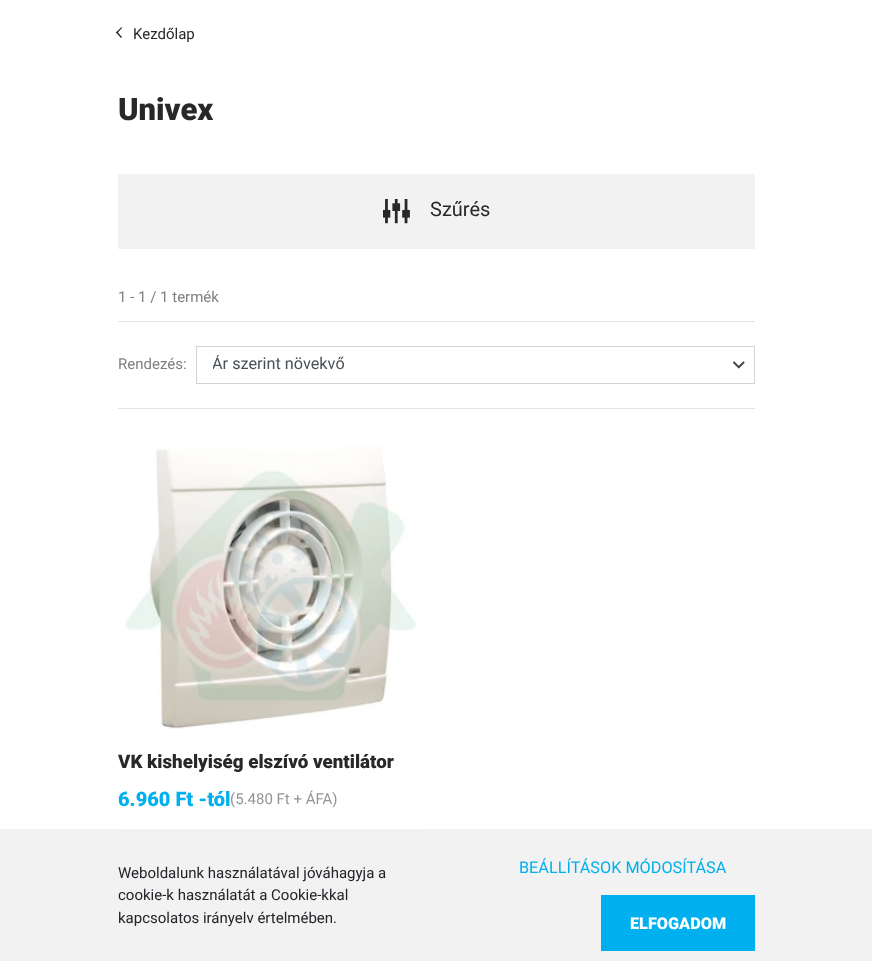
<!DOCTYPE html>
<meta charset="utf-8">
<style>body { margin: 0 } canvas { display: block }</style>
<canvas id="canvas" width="872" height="961"></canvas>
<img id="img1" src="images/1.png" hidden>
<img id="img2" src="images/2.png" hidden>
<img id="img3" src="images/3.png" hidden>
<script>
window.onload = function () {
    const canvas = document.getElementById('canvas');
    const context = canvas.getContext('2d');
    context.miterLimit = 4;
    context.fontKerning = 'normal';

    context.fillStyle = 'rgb(255, 255, 255)';
    context.fillRect(0, 0, 872, 961);
    context.fillStyle = 'rgb(242, 242, 242)';
    context.fillRect(0, 829, 872, 132);
    context.fillStyle = 'rgb(40, 39, 41)';
    context.beginPath();
    context.moveTo(122, 37);
    context.lineTo(121, 38);
    context.lineTo(116, 32.5);
    context.lineTo(117, 31.5);
    context.closePath();
    context.fill();
    context.beginPath();
    context.moveTo(122, 28);
    context.lineTo(117, 33.5);
    context.lineTo(116, 32.5);
    context.lineTo(121.5, 27);
    context.closePath();
    context.fill();
    context.fillStyle = 'rgb(242, 242, 242)';
    context.fillRect(118, 174, 637, 75);
    context.drawImage(document.getElementById('img1'), 383, 199, 27, 25);
    context.fillStyle = 'rgb(226, 226, 226)';
    context.fillRect(118, 321, 637, 1);
    context.fillRect(118, 408, 637, 1);
    context.drawImage(document.getElementById('img2'), 733, 361, 12, 8);
    context.strokeStyle = 'rgb(211, 211, 211)';
    context.strokeRect(196.5, 346.5, 558, 37);
    context.drawImage(document.getElementById('img3'), 125, 446, 292, 283);
    context.fillStyle = 'rgb(239, 239, 239)';
    context.fillRect(118, 831, 306, 1);
    context.fillRect(118, 889, 318, 1);
    context.fillRect(118, 935, 318, 1);
    context.fillStyle = 'rgb(0, 175, 238)';
    context.fillRect(601, 895, 154, 56);
    context.font = '15px Roboto';
    context.fillStyle = 'rgb(40, 39, 41)';
    context.fillText('Kezdőlap', 133, 39);
    context.font = '900 31px Roboto';
    context.fillText('Univex', 118, 120);
    context.font = '20px Roboto';
    context.fillText('Szűrés', 430, 216);
    context.font = '15px Roboto';
    context.fillStyle = 'rgb(128, 128, 128)';
    context.fillText('1 - 1 / 1 termék', 118, 302);
    context.fillText('Rendezés:', 118, 369);
    context.save();
    context.beginPath();
    context.rect(213, 355, 512, 20);
    context.clip();
    context.font = '16.25px Roboto';
    context.fillStyle = 'rgb(73, 80, 87)';
    context.fillText('Ár szerint növekvő', 212, 369);
    context.restore();
    context.font = '900 18.75px Roboto';
    context.fillStyle = 'rgb(40, 39, 41)';
    context.fillText('VK kishelyiség elszívó ventilátor', 118, 768);
    context.font = '900 20px Roboto';
    context.fillStyle = 'rgb(0, 175, 238)';
    context.fillText('6.960 Ft -tól', 118, 806);
    context.font = '15px Roboto';
    context.fillStyle = 'rgb(146, 149, 151)';
    context.fillText('(5.480 Ft + ÁFA)', 230, 804);
    context.fillStyle = 'rgb(33, 37, 41)';
    context.fillText('Weboldalunk használatával jóváhagyja a', 118, 878);
    context.fillText('cookie-k használatát a Cookie-kkal', 118, 900);
    context.fillText('kapcsolatos irányelv értelmében.', 118, 923);
    context.font = '16.25px Roboto';
    context.fillStyle = 'rgb(0, 175, 238)';
    context.fillText('BEÁLLÍTÁSOK MÓDOSÍTÁSA', 519, 873);
    context.font = '900 16.25px Roboto';
    context.fillStyle = 'rgb(255, 255, 255)';
    context.fillText('ELFOGADOM', 630, 929);
};
</script>
